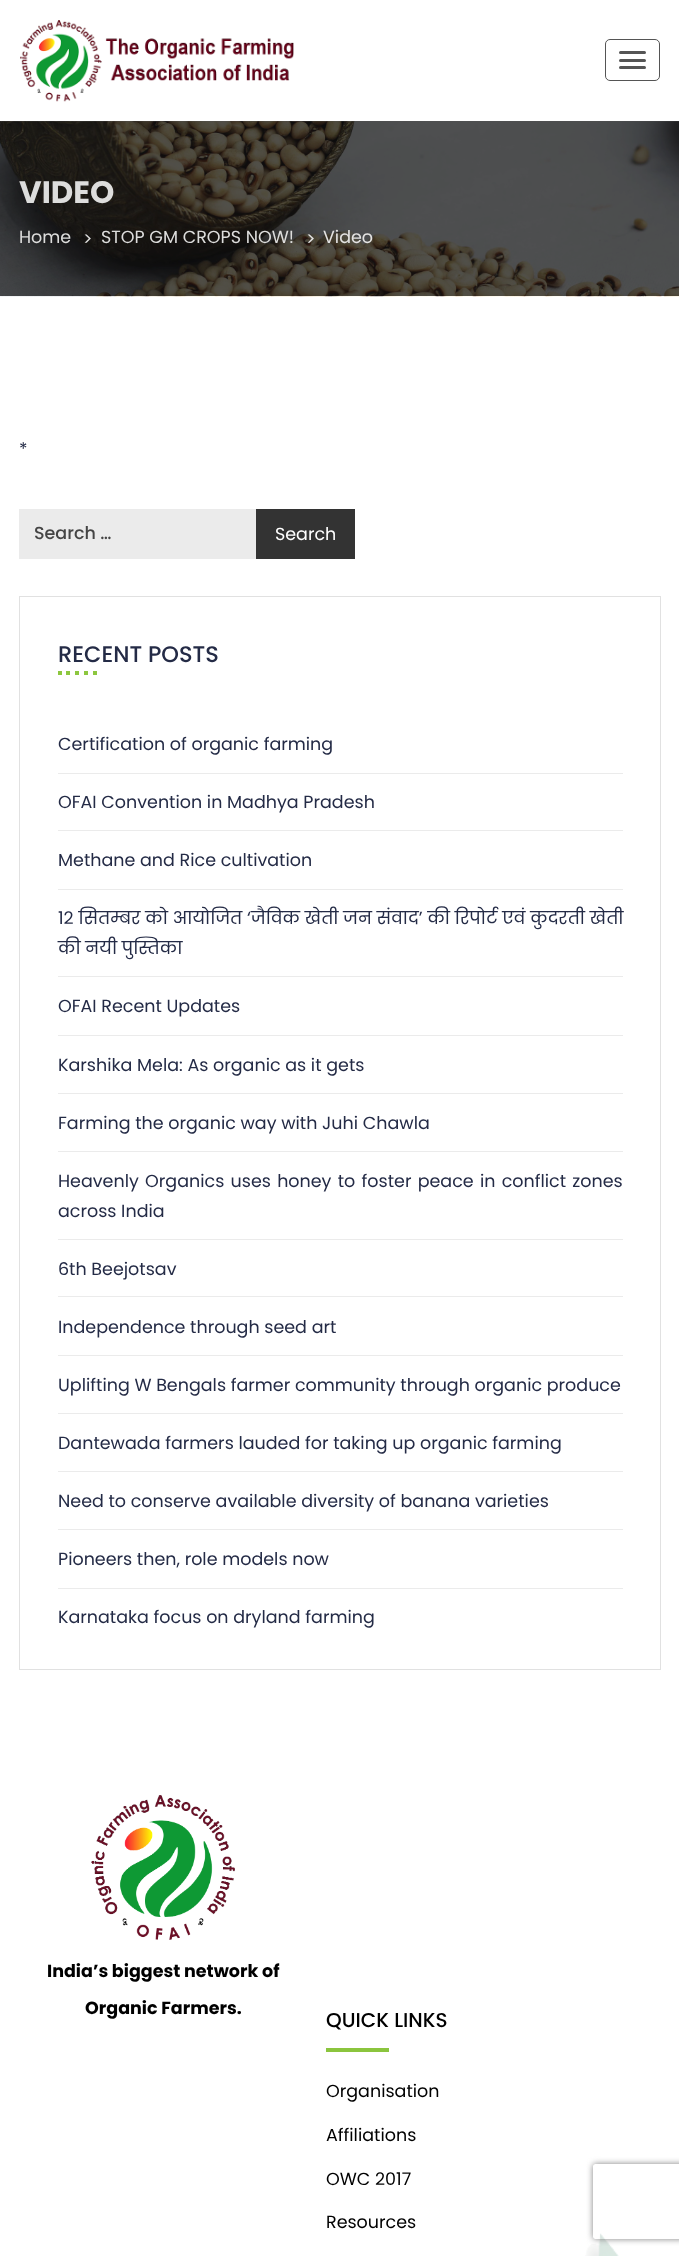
<!DOCTYPE html>
<meta charset="utf-8">
<style>body { margin: 0 } canvas { display: block }</style>
<canvas id="canvas" width="679" height="2256"></canvas>
<img id="img1" src="images/1.png" hidden>
<img id="img2" src="images/2.png" hidden>
<img id="img3" src="images/3.png" hidden>
<img id="img4" src="images/4.png" hidden>
<script>
window.onload = function () {
    const canvas = document.getElementById('canvas');
    const context = canvas.getContext('2d');
    context.miterLimit = 4;
    context.fontKerning = 'normal';

    context.fillStyle = 'rgb(255, 255, 255)';
    context.fillRect(0, 0, 679, 2256);
    context.fillStyle = 'rgb(82, 82, 82)';
    context.fillRect(0, 121, 679, 175);
    context.drawImage(document.getElementById('img1'), 20, 20, 274, 82);
    context.beginPath();
    context.roundRect(605.5, 39.5, 54, 41, 4.5);
    context.strokeStyle = 'rgb(85, 85, 85)';
    context.stroke();
    context.fillStyle = 'rgb(85, 85, 85)';
    context.beginPath();
    context.roundRect(619, 51, 27, 3, 1.5);
    context.fill();
    context.beginPath();
    context.roundRect(619, 59, 27, 3, 1.5);
    context.fill();
    context.beginPath();
    context.roundRect(619, 66, 27, 3, 1.5);
    context.fill();
    context.drawImage(document.getElementById('img2'), 0, 121, 679, 176);
    context.fillStyle = 'rgb(235, 235, 235)';
    context.fillRect(19, 509, 237, 50);
    context.fillStyle = 'rgb(51, 51, 51)';
    context.fillRect(256, 509, 99, 50);
    context.strokeStyle = 'rgb(225, 225, 225)';
    context.strokeRect(19.5, 596.5, 641, 1073);
    context.fillStyle = 'rgb(141, 199, 63)';
    context.fillRect(58, 671, 4, 4);
    context.fillRect(66, 671, 4, 4);
    context.fillRect(75, 671, 4, 4);
    context.fillRect(84, 671, 4, 4);
    context.fillRect(93, 671, 4, 4);
    context.fillStyle = 'rgb(235, 235, 235)';
    context.fillRect(58, 773, 565, 1);
    context.fillRect(58, 830, 565, 1);
    context.fillRect(58, 889, 565, 1);
    context.fillRect(58, 976, 565, 1);
    context.fillRect(58, 1035, 565, 1);
    context.fillRect(58, 1093, 565, 1);
    context.fillRect(58, 1151, 565, 1);
    context.fillRect(58, 1239, 565, 1);
    context.fillRect(58, 1296, 565, 1);
    context.fillRect(58, 1355, 565, 1);
    context.fillRect(58, 1413, 565, 1);
    context.fillRect(58, 1471, 565, 1);
    context.fillRect(58, 1529, 565, 1);
    context.fillRect(58, 1588, 565, 1);
    context.drawImage(document.getElementById('img3'), 585, 2233, 34, 23);
    context.drawImage(document.getElementById('img4'), 91, 1795, 144, 145);
    context.fillStyle = 'rgb(139, 197, 62)';
    context.fillRect(326, 2048, 63, 4);
    context.save();
    context.beginPath();
    context.moveTo(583, 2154);
    context.lineTo(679, 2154);
    context.lineTo(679, 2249);
    context.lineTo(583, 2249);
    context.closePath();
    context.moveTo(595.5, 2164);
    context.lineTo(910.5, 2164);
    context.bezierCurveTo(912, 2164, 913, 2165, 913, 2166.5);
    context.lineTo(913, 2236.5);
    context.bezierCurveTo(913, 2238, 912, 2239, 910.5, 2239);
    context.lineTo(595.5, 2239);
    context.bezierCurveTo(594, 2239, 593, 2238, 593, 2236.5);
    context.lineTo(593, 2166.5);
    context.bezierCurveTo(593, 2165, 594, 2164, 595.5, 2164);
    context.closePath();
    context.clip('evenodd');
    context.fillStyle = 'rgb(128, 128, 128)';
    context.filter = 'blur(3px)';
    context.beginPath();
    context.roundRect(593, 2164, 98, 75, 2.5);
    context.fill();
    context.filter = 'none';
    context.restore();
    context.font = 'bold 31px Poppins';
    context.fillStyle = 'rgb(221, 221, 220)';
    context.fillText('VIDEO', 19, 203);
    context.font = '17.5px Poppins';
    context.fillText('Home', 19, 243);
    context.fillText('>', 83, 245);
    context.fillText('STOP GM CROPS NOW!', 101, 243);
    context.fillStyle = 'rgb(228, 227, 226)';
    context.fillText('>', 306, 245);
    context.fillText('Video', 323, 243);
    context.fillStyle = 'rgb(36, 43, 70)';
    context.fillText('*', 19, 455);
    context.font = '500 17.5px Poppins';
    context.fillStyle = 'rgb(69, 69, 69)';
    context.fillText('Search …', 34, 539);
    context.font = '17.5px Poppins';
    context.fillStyle = 'rgb(255, 255, 255)';
    context.fillText('Search', 275, 540);
    context.font = '500 22.5px Poppins';
    context.fillStyle = 'rgb(36, 43, 70)';
    context.fillText('RECENT POSTS', 58, 662);
    context.font = '17.5px Poppins';
    context.fillText('Certification of organic farming', 58, 750);
    context.fillText('OFAI Convention in Madhya Pradesh', 58, 808);
    context.fillText('Methane and Rice cultivation', 58, 866);
    context.wordSpacing = '0.2px';
    context.fillText('12 सितम्बर को आयोजित ‘जैविक खेती जन संवाद’ की रिपोर्ट एवं कुदरती खेती', 58, 924);
    context.wordSpacing = '0px';
    context.fillText('की नयी पुस्तिका', 58, 954);
    context.fillText('OFAI Recent Updates', 58, 1012);
    context.fillText('Karshika Mela: As organic as it gets', 58, 1071);
    context.fillText('Farming the organic way with Juhi Chawla', 58, 1129);
    context.wordSpacing = '1.6px';
    context.fillText('Heavenly Organics uses honey to foster peace in conflict zones', 58, 1187);
    context.wordSpacing = '0px';
    context.fillText('across India', 58, 1217);
    context.fillText('6th Beejotsav', 58, 1275);
    context.fillText('Independence through seed art', 58, 1333);
    context.fillText('Uplifting W Bengals farmer community through organic produce', 58, 1391);
    context.fillText('Dantewada farmers lauded for taking up organic farming', 58, 1449);
    context.fillText('Need to conserve available diversity of banana varieties', 58, 1507);
    context.fillText('Pioneers then, role models now', 58, 1565);
    context.fillText('Karnataka focus on dryland farming', 58, 1623);
    context.font = 'bold 17.5px Poppins';
    context.fillStyle = 'rgb(0, 0, 0)';
    context.fillText('India’s biggest network of', 47, 1977);
    context.fillText('Organic Farmers.', 85, 2014);
    context.font = '500 20px Poppins';
    context.fillText('QUICK LINKS', 326, 2027);
    context.font = '17.5px Poppins';
    context.fillText('Organisation', 326, 2097);
    context.fillText('Affiliations', 326, 2141);
    context.fillText('OWC 2017', 326, 2185);
    context.fillText('Resources', 326, 2228);
};
</script>
